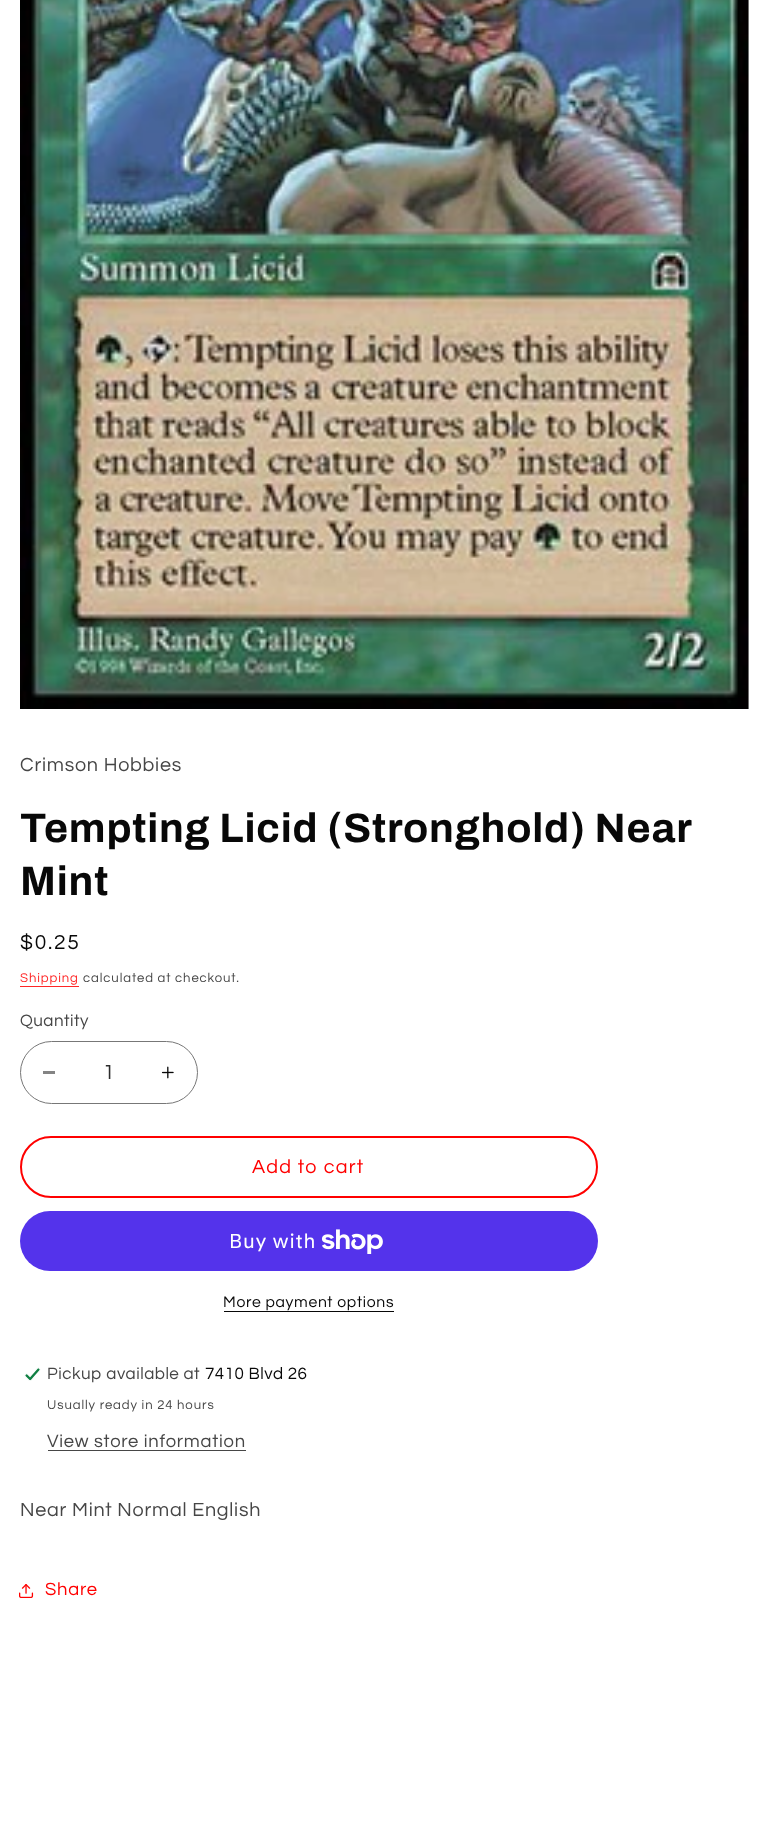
<!DOCTYPE html>
<meta charset="utf-8">
<style>body { margin: 0 } canvas { display: block }</style>
<canvas id="canvas" width="768" height="1839"></canvas>
<img id="img1" src="images/1.png" hidden>
<img id="img2" src="images/2.png" hidden>
<img id="img3" src="images/3.png" hidden>
<img id="img4" src="images/4.png" hidden>
<img id="img5" src="images/5.png" hidden>
<script>
window.onload = function () {
    const canvas = document.getElementById('canvas');
    const context = canvas.getContext('2d');
    context.miterLimit = 4;
    context.fontKerning = 'normal';

    context.fillStyle = 'rgb(255, 255, 255)';
    context.fillRect(0, 0, 768, 1839);
    context.drawImage(document.getElementById('img1'), 20, 0, 729, 709);
    context.fillStyle = 'rgb(255, 38, 38)';
    context.fillRect(20, 986, 59, 1);
    context.fillStyle = 'rgb(132, 132, 132)';
    context.fillRect(43, 1071, 12, 3);
    context.drawImage(document.getElementById('img2'), 161, 1066, 13, 13);
    context.beginPath();
    context.roundRect(20.5, 1041.5, 177, 62, 31);
    context.strokeStyle = 'rgb(119, 119, 119)';
    context.stroke();
    context.beginPath();
    context.roundRect(21, 1137, 576, 60, 30);
    context.strokeStyle = 'rgb(255, 0, 0)';
    context.lineWidth = 2;
    context.stroke();
    context.fillStyle = 'rgb(84, 51, 235)';
    context.beginPath();
    context.roundRect(20, 1211, 578, 60, 30);
    context.fill();
    context.drawImage(document.getElementById('img3'), 321, 1229, 62, 25);
    context.fillStyle = 'rgb(8, 8, 8)';
    context.fillRect(224, 1311, 170, 1);
    context.drawImage(document.getElementById('img4'), 24, 1367, 17, 14);
    context.fillStyle = 'rgb(70, 70, 70)';
    context.fillRect(48, 1450, 198, 1);
    context.drawImage(document.getElementById('img5'), 19, 1584, 15, 14);
    context.letterSpacing = '0.75px';
    context.font = '19.75px Questrial';
    context.fillText('Crimson Hobbies', 20, 771);
    context.letterSpacing = '0.8px';
    context.font = 'bold 41.25px Archivo';
    context.fillStyle = 'rgb(8, 8, 8)';
    context.fillText('Tempting Licid (Stronghold) Near', 20, 842);
    context.fillText('Mint', 20, 895);
    context.letterSpacing = '1.75px';
    context.font = '21px Questrial';
    context.fillText('$0.25', 20, 949);
    context.letterSpacing = '0.9px';
    context.font = '13.1px Questrial';
    context.fillStyle = 'rgb(255, 38, 38)';
    context.fillText('Shipping', 20, 982);
    context.fillStyle = 'rgb(70, 70, 70)';
    context.fillText('calculated at checkout.', 83, 982);
    context.letterSpacing = '0.5px';
    context.font = '17px Questrial';
    context.fillText('Quantity', 20, 1026);
    context.letterSpacing = '0px';
    context.font = '21px Questrial';
    context.fillStyle = 'rgb(45, 45, 45)';
    context.fillText('1', 103, 1079);
    context.letterSpacing = '1.25px';
    context.font = '19.75px Questrial';
    context.fillStyle = 'rgb(255, 0, 0)';
    context.fillText('Add to cart', 252, 1173);
    context.letterSpacing = '0.75px';
    context.font = '20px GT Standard';
    context.fillStyle = 'rgb(255, 255, 255)';
    context.fillText('Buy with', 229, 1248);
    context.letterSpacing = '0.7px';
    context.font = '15.75px Questrial';
    context.fillStyle = 'rgb(8, 8, 8)';
    context.fillText('More payment options', 223, 1307);
    context.letterSpacing = '0.5px';
    context.font = '17px Questrial';
    context.fillStyle = 'rgb(70, 70, 70)';
    context.fillText('Pickup available at', 47, 1379);
    context.fillStyle = 'rgb(8, 8, 8)';
    context.fillText('7410 Blvd 26', 205, 1379);
    context.letterSpacing = '0.9px';
    context.font = '13.1px Questrial';
    context.fillStyle = 'rgb(70, 70, 70)';
    context.fillText('Usually ready in 24 hours', 47, 1409);
    context.letterSpacing = '0.75px';
    context.font = '18.4px Questrial';
    context.fillText('View store information', 47, 1447);
    context.font = '19.75px Questrial';
    context.fillText('Near Mint Normal English', 20, 1516);
    context.font = '18.4px Questrial';
    context.fillStyle = 'rgb(255, 0, 0)';
    context.fillText('Share', 45, 1595);
};
</script>
